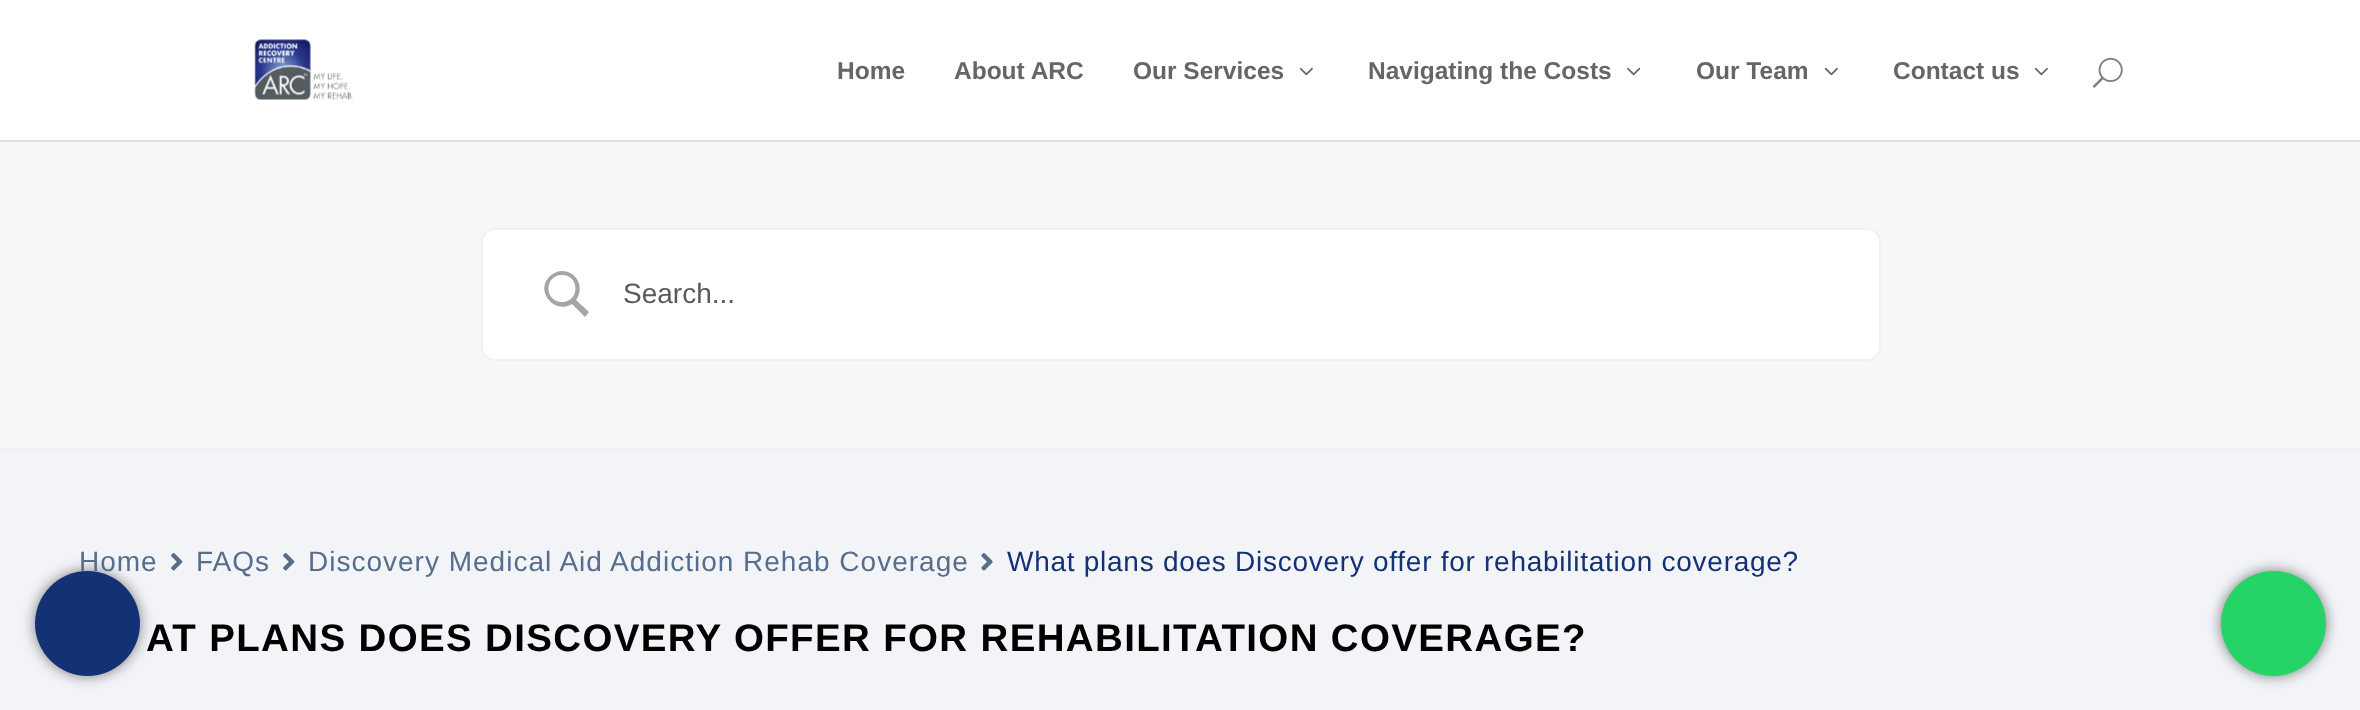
<!DOCTYPE html>
<meta charset="utf-8">
<style>body { margin: 0 } canvas { display: block }</style>
<canvas id="canvas" width="2360" height="710"></canvas>
<img id="img1" src="images/1.png" hidden>
<img id="img2" src="images/2.png" hidden>
<img id="img3" src="images/3.png" hidden>
<img id="img4" src="images/4.png" hidden>
<img id="img5" src="images/5.png" hidden>
<img id="img6" src="images/6.png" hidden>
<script>
window.onload = function () {
    const canvas = document.getElementById('canvas');
    const context = canvas.getContext('2d');
    context.miterLimit = 4;
    context.fontKerning = 'normal';

    context.fillStyle = 'rgb(255, 255, 255)';
    context.fillRect(0, 0, 2360, 710);
    context.fillStyle = 'rgb(222, 222, 222)';
    context.beginPath();
    context.moveTo(0, 140);
    context.lineTo(0, 142);
    context.lineTo(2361, 142);
    context.lineTo(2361, 2);
    context.lineTo(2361, 140);
    context.closePath();
    context.fill();
    context.drawImage(document.getElementById('img1'), 254, 39, 100, 61);
    context.drawImage(document.getElementById('img2'), 1299, 67, 14, 9);
    context.drawImage(document.getElementById('img3'), 1627, 67, 14, 9);
    context.drawImage(document.getElementById('img2'), 1824, 67, 14, 9);
    context.drawImage(document.getElementById('img2'), 2034, 67, 14, 9);
    context.drawImage(document.getElementById('img4'), 2092, 57, 31, 31);
    context.fillStyle = 'rgb(242, 244, 247)';
    context.fillRect(0, 450, 2360, 260);
    context.fillStyle = 'rgb(247, 247, 247)';
    context.fillRect(0, 142, 2360, 306);
    context.fillStyle = 'rgb(241, 241, 241)';
    context.fillRect(0, 448, 2360, 2);
    context.fillStyle = 'rgb(255, 255, 255)';
    context.beginPath();
    context.roundRect(482, 229, 1398, 131, 13);
    context.fill();
    context.strokeStyle = 'rgb(241, 241, 241)';
    context.lineWidth = 2;
    context.stroke();
    context.fillStyle = 'rgb(162, 165, 170)';
    context.beginPath();
    context.moveTo(562, 271);
    context.bezierCurveTo(558, 271, 553, 273, 550, 276);
    context.bezierCurveTo(534, 291, 555, 315, 572, 304);
    context.lineTo(585, 317);
    context.lineTo(589, 312);
    context.lineTo(576, 300);
    context.bezierCurveTo(585, 288, 577, 271, 562, 271);
    context.closePath();
    context.moveTo(562, 275);
    context.bezierCurveTo(580, 275, 580, 302, 562, 302);
    context.bezierCurveTo(544, 302, 544, 275, 562, 275);
    context.closePath();
    context.fill();
    context.drawImage(document.getElementById('img5'), 171, 553, 12, 18);
    context.drawImage(document.getElementById('img5'), 283, 553, 12, 18);
    context.drawImage(document.getElementById('img6'), 981, 553, 12, 18);
    context.fillStyle = 'rgba(0, 0, 0, 0.5)';
    context.filter = 'blur(7px)';
    context.beginPath();
    context.roundRect(35, 571, 105, 105, 52.5);
    context.fill();
    context.filter = 'none';
    context.filter = 'blur(7px)';
    context.beginPath();
    context.roundRect(2221, 571, 105, 105, 52.5);
    context.fill();
    context.filter = 'none';
    context.fillStyle = 'rgb(37, 211, 102)';
    context.beginPath();
    context.arc(2273.5, 623.5, 52.5, 0, 2 * Math.PI);
    context.fill();
    context.font = 'bold 24.5px Liberation Sans';
    context.fillStyle = 'rgb(102, 102, 102)';
    context.fillText('Home', 837, 79);
    context.fillText('About ARC', 954, 79);
    context.fillText('Our Services', 1133, 79);
    context.fillText('Navigating the Costs', 1368, 79);
    context.fillText('Our Team', 1696, 79);
    context.fillText('Contact us', 1893, 79);
    context.font = '28px Liberation Sans';
    context.fillStyle = 'rgb(89, 89, 89)';
    context.fillText('Search...', 623, 303);
    context.letterSpacing = '1px';
    context.fillStyle = 'rgb(86, 110, 139)';
    context.fillText('Home', 79, 571);
    context.fillText('FAQs', 196, 571);
    context.fillText('Discovery Medical Aid Addiction Rehab Coverage', 308, 571);
    context.letterSpacing = '0.73px';
    context.fillStyle = 'rgb(20, 49, 117)';
    context.fillText('What plans does Discovery offer for rehabilitation coverage?', 1007, 571);
    context.letterSpacing = '1.35px';
    context.font = 'bold 38.5px Liberation Sans';
    context.fillStyle = 'rgb(0, 0, 0)';
    context.fillText('AT PLANS DOES DISCOVERY OFFER FOR REHABILITATION COVERAGE?', 146, 651);
    context.fillStyle = 'rgb(20, 49, 117)';
    context.beginPath();
    context.arc(87.5, 623.5, 52.5, 0, 2 * Math.PI);
    context.fill();
};
</script>
